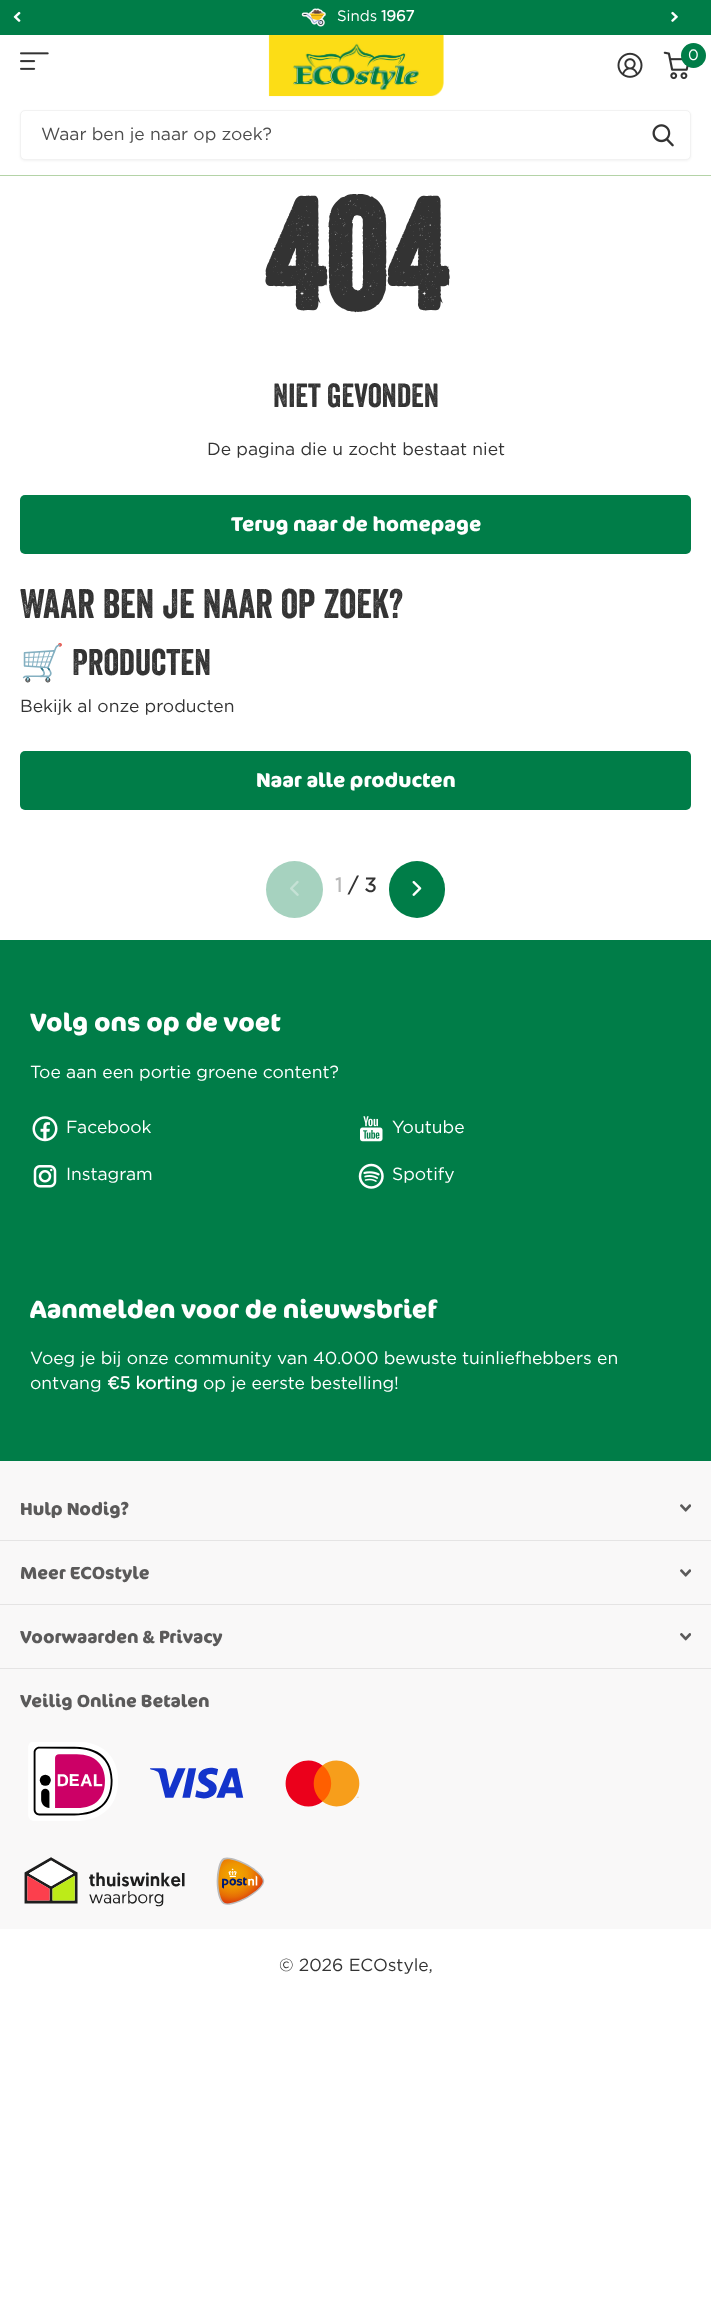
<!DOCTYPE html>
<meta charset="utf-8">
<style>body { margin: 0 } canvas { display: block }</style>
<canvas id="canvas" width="711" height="2311"></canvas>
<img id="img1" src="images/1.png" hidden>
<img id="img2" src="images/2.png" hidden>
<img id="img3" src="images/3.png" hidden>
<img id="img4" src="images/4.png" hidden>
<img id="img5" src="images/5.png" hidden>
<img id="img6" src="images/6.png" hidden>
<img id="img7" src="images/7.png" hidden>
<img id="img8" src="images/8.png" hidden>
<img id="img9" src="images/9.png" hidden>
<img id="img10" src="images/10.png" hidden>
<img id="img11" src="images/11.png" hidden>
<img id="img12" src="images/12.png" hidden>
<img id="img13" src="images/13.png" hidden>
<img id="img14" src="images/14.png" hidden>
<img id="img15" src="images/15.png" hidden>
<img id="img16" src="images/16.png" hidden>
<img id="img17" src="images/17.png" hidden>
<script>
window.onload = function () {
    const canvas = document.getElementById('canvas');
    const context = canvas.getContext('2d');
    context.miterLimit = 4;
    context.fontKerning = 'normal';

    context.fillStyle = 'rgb(255, 255, 255)';
    context.fillRect(0, 0, 711, 2311);
    context.fillStyle = 'rgb(180, 211, 167)';
    context.fillRect(0, 175, 711, 1);
    context.fillStyle = 'rgb(0, 125, 72)';
    context.fillRect(0, 0, 711, 35);
    context.drawImage(document.getElementById('img1'), 13, 11, 8, 11);
    context.drawImage(document.getElementById('img2'), 301, 8, 25, 19);
    context.drawImage(document.getElementById('img3'), 671, 11, 7, 11);
    context.drawImage(document.getElementById('img4'), 20, 52, 29, 18);
    context.drawImage(document.getElementById('img5'), 268, 35, 176, 62);
    context.drawImage(document.getElementById('img6'), 617, 52, 26, 26);
    context.drawImage(document.getElementById('img7'), 663, 51, 26, 29);
    context.beginPath();
    context.arc(693.5, 55.5, 12.5, 0, 2 * Math.PI);
    context.fill();
    context.fillStyle = 'rgba(0, 0, 0, 0.05)';
    context.filter = 'blur(1px)';
    context.beginPath();
    context.roundRect(20, 111, 671, 50, 5);
    context.fill();
    context.filter = 'none';
    context.fillStyle = 'rgb(255, 255, 255)';
    context.beginPath();
    context.roundRect(20.5, 110.5, 670, 49, 4.5);
    context.fill();
    context.strokeStyle = 'rgb(242, 242, 242)';
    context.stroke();
    context.drawImage(document.getElementById('img8'), 652, 124, 22, 23);
    context.fillStyle = 'rgb(0, 125, 72)';
    context.beginPath();
    context.roundRect(20, 495, 671, 59, 5);
    context.fill();
    context.beginPath();
    context.roundRect(20, 751, 671, 59, 5);
    context.fill();
    context.fillStyle = 'rgb(166, 210, 191)';
    context.beginPath();
    context.arc(294.5, 889.5, 28.5, 0, 2 * Math.PI);
    context.fill();
    context.drawImage(document.getElementById('img9'), 290, 880, 9, 16);
    context.fillStyle = 'rgb(0, 125, 72)';
    context.beginPath();
    context.roundRect(389, 861, 56, 57, 28);
    context.fill();
    context.drawImage(document.getElementById('img10'), 412, 881, 10, 15);
    context.fillRect(0, 940, 711, 521);
    context.drawImage(document.getElementById('img11'), 32, 1116, 26, 26);
    context.drawImage(document.getElementById('img12'), 360, 1116, 23, 26);
    context.drawImage(document.getElementById('img13'), 33, 1165, 24, 23);
    context.drawImage(document.getElementById('img14'), 358, 1163, 26, 26);
    context.fillStyle = 'rgb(249, 248, 248)';
    context.fillRect(0, 1461, 711, 468);
    context.drawImage(document.getElementById('img15'), 680, 1504, 11, 8);
    context.fillStyle = 'rgb(229, 228, 228)';
    context.fillRect(0, 1540, 711, 1);
    context.drawImage(document.getElementById('img15'), 680, 1569, 11, 8);
    context.fillRect(0, 1604, 711, 1);
    context.drawImage(document.getElementById('img16'), 680, 1633, 11, 8);
    context.fillRect(0, 1668, 711, 1);
    context.drawImage(document.getElementById('img17'), 24, 1742, 336, 165);
    context.font = '15px Gotham';
    context.fillStyle = 'rgb(255, 255, 255)';
    context.fillText('Sinds', 337, 21);
    context.font = 'bold 15px Gotham';
    context.fillText('1967', 381, 21);
    context.font = '15px Gotham';
    context.fillText('0', 688, 60);
    context.font = '17.5px Gotham';
    context.fillStyle = 'rgb(77, 77, 77)';
    context.fillText('Waar ben je naar op zoek?', 41, 140);
    context.font = 'bold 152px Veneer';
    context.fillStyle = 'rgb(51, 51, 51)';
    context.fillText('404', 264, 310);
    context.font = '32.5px Veneer';
    context.fillText('Niet gevonden', 273, 407);
    context.font = '17.5px Gotham';
    context.fillText('De pagina die u zocht bestaat niet', 207, 455);
    context.font = 'bold 20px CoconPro';
    context.fillStyle = 'rgb(255, 255, 255)';
    context.fillText('Terug naar de homepage', 231, 531);
    context.font = '40px Veneer';
    context.fillStyle = 'rgb(51, 51, 51)';
    context.fillText('Waar ben je naar op zoek?', 20, 618);
    context.font = '36px Noto Color Emoji';
    context.fillText('🛒', 20, 675);
    context.font = '36px Veneer';
    context.fillText('Producten', 72, 675);
    context.font = '17.5px Gotham';
    context.fillText('Bekijk al onze producten', 20, 712);
    context.font = 'bold 20px CoconPro';
    context.fillStyle = 'rgb(255, 255, 255)';
    context.fillText('Naar alle producten', 256, 787);
    context.font = 'bold 20px Gotham';
    context.fillStyle = 'rgb(184, 184, 184)';
    context.fillText('1', 335, 892);
    context.fillStyle = 'rgb(51, 51, 51)';
    context.fillText('/ 3', 348, 892);
    context.font = 'bold 25px CoconPro';
    context.fillStyle = 'rgb(255, 255, 255)';
    context.fillText('Volg ons op de voet', 30, 1031);
    context.font = '17.5px Gotham';
    context.fillText('Toe aan een portie groene content?', 30, 1078);
    context.fillText('Facebook', 66, 1133);
    context.fillText('Youtube', 392, 1133);
    context.fillText('Instagram', 66, 1180);
    context.fillText('Spotify', 392, 1180);
    context.font = 'bold 25px CoconPro';
    context.fillText('Aanmelden voor de nieuwsbrief', 30, 1318);
    context.font = '17.5px Gotham';
    context.fillText('Voeg je bij onze community van 40.000 bewuste tuinliefhebbers en', 30, 1364);
    context.fillText('ontvang', 30, 1389);
    context.font = 'bold 17.5px Gotham';
    context.fillText('€5 korting', 107, 1389);
    context.font = '17.5px Gotham';
    context.fillText('op je eerste bestelling!', 203, 1389);
    context.font = 'bold 17.5px CoconPro';
    context.fillStyle = 'rgb(91, 90, 90)';
    context.fillText('Hulp Nodig?', 20, 1515);
    context.fillText('Meer ECOstyle', 20, 1579);
    context.fillText('Voorwaarden & Privacy', 20, 1643);
    context.fillText('Veilig Online Betalen', 20, 1707);
    context.font = '17.5px Gotham';
    context.fillStyle = 'rgb(51, 51, 51)';
    context.fillText('© 2026 ECOstyle,', 279, 1971);
};
</script>
